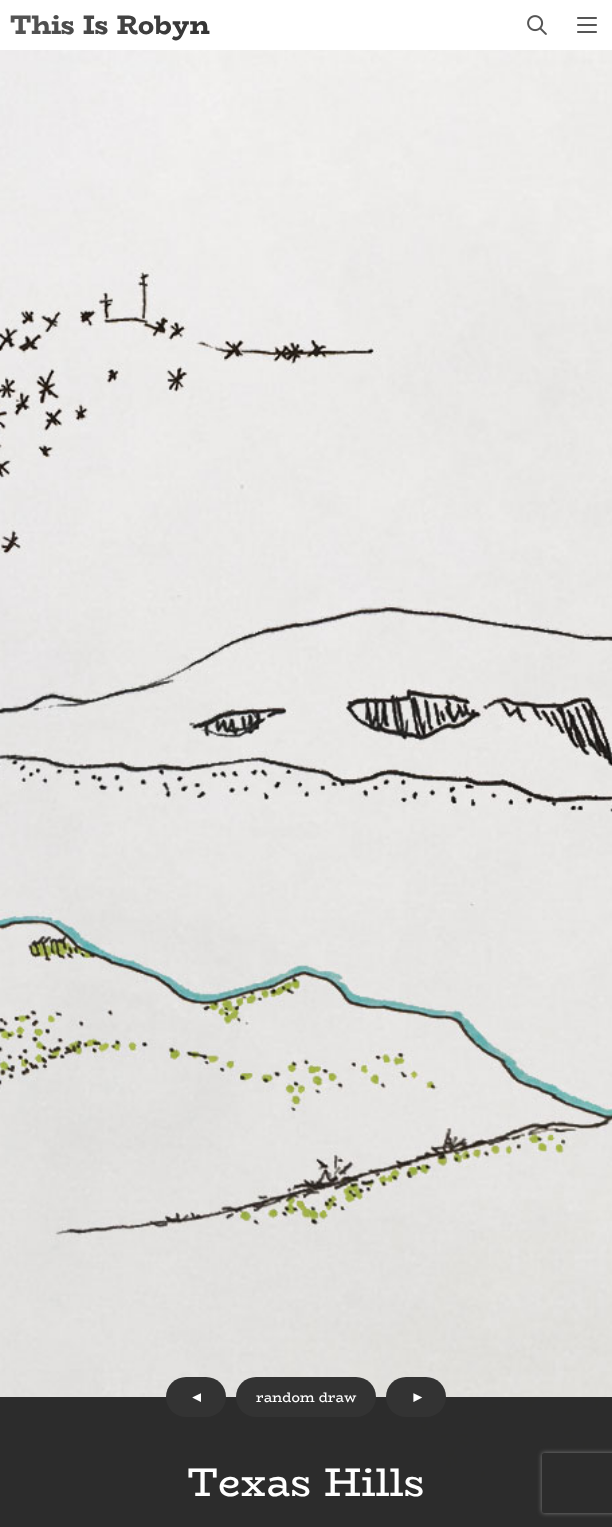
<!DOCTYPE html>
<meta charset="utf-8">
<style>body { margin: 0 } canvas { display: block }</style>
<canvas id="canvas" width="612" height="1527"></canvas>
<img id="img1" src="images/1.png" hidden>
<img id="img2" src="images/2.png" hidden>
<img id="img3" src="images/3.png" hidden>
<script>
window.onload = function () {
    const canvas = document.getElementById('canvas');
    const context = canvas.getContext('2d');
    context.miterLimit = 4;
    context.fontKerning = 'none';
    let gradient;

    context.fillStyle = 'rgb(255, 255, 255)';
    context.fillRect(0, 0, 612, 1527);
    context.drawImage(document.getElementById('img1'), 527, 15, 20, 20);
    context.drawImage(document.getElementById('img2'), 577, 17, 20, 16);
    context.drawImage(document.getElementById('img3'), 0, 50, 612, 1477);
    context.fillStyle = 'rgba(34, 34, 34, 0.95)';
    context.fillRect(0, 1397, 612, 130);
    context.fillStyle = 'rgb(51, 51, 51)';
    context.beginPath();
    context.roundRect(166, 1377, 60, 40, 20);
    context.fill();
    context.beginPath();
    context.roundRect(236, 1377, 140, 40, 20);
    context.fill();
    context.beginPath();
    context.roundRect(386, 1377, 60, 40, 20);
    context.fill();
    context.save();
    context.beginPath();
    context.moveTo(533, 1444);
    context.lineTo(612, 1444);
    context.lineTo(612, 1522);
    context.lineTo(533, 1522);
    context.closePath();
    context.moveTo(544, 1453);
    context.lineTo(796, 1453);
    context.bezierCurveTo(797, 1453, 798, 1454, 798, 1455);
    context.lineTo(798, 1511);
    context.bezierCurveTo(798, 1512, 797, 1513, 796, 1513);
    context.lineTo(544, 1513);
    context.bezierCurveTo(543, 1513, 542, 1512, 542, 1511);
    context.lineTo(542, 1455);
    context.bezierCurveTo(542, 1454, 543, 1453, 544, 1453);
    context.closePath();
    context.clip('evenodd');
    context.fillStyle = 'rgb(128, 128, 128)';
    context.filter = 'blur(2.5px)';
    context.beginPath();
    context.roundRect(542, 1453, 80, 60, 2);
    context.fill();
    context.filter = 'none';
    context.restore();
    context.font = '800 27px BioRhyme';
    gradient = context.createLinearGradient(0, 25, 220, 25);
    gradient.addColorStop(0.05, 'rgb(85, 85, 85)');
    gradient.addColorStop(0.95, 'rgb(51, 51, 51)');
    context.fillStyle = gradient;
    context.fillText('This Is Robyn', 10, 34);
    context.font = '15px Liberation Sans';
    context.fillStyle = 'rgb(255, 255, 255)';
    context.save();
    context.translate(201, 1405);
    context.rotate(-90 * Math.PI / 180);
    context.fillText('▲︎', 0, 0);
    context.restore();
    context.font = '14px BioRhyme';
    context.fillText('random draw', 256, 1402);
    context.font = '15px Liberation Sans';
    context.save();
    context.translate(422, 1405);
    context.rotate(-90 * Math.PI / 180);
    context.fillText('▼︎', 0, 0);
    context.restore();
    context.font = '40px BioRhyme';
    context.fillText('Texas Hills', 187, 1496);
};
</script>
